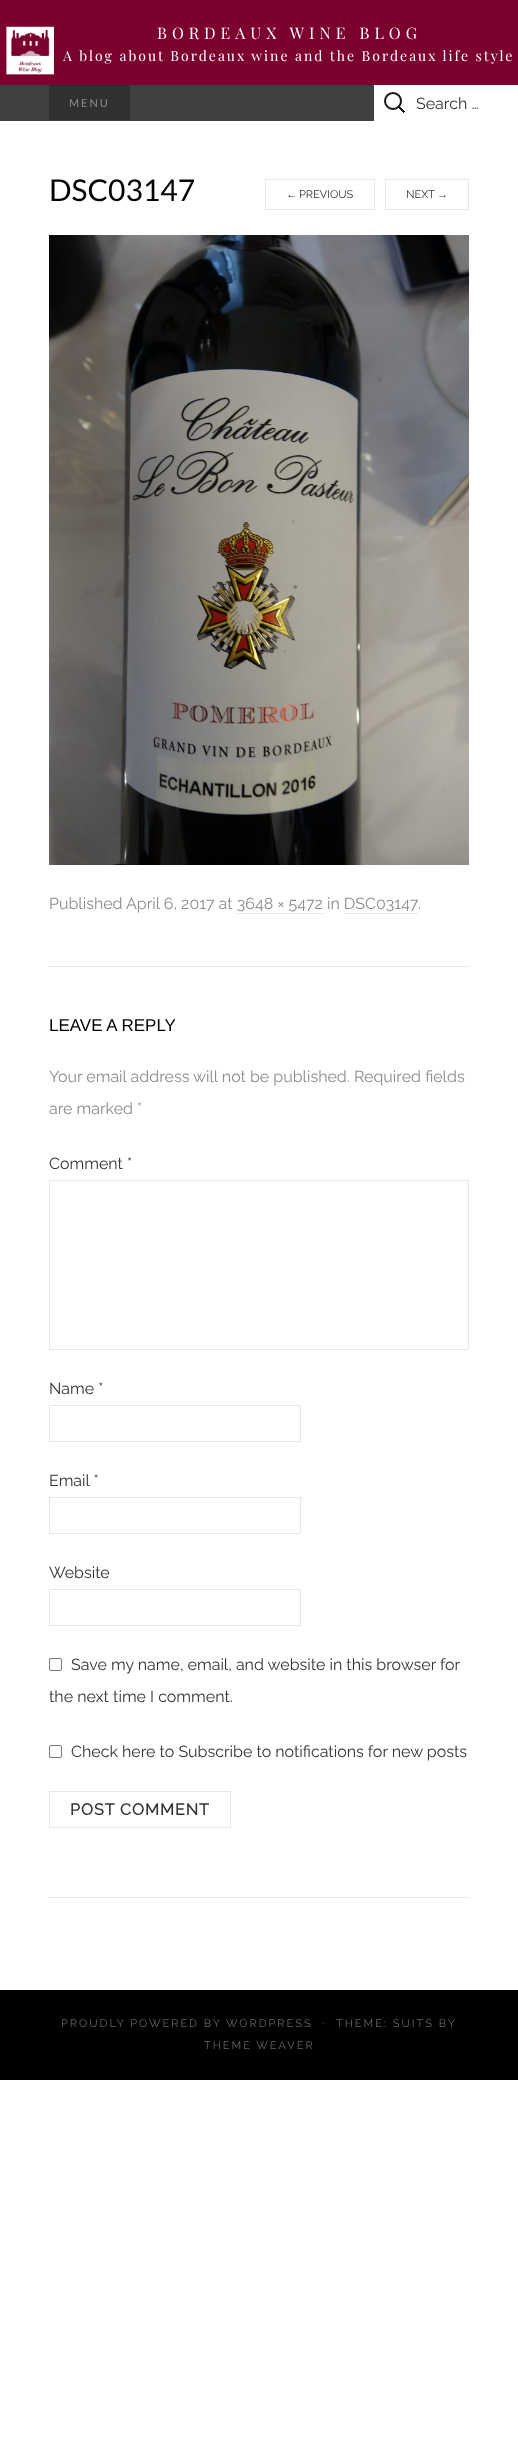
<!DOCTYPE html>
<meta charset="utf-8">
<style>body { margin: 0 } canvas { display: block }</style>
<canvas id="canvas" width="518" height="2445"></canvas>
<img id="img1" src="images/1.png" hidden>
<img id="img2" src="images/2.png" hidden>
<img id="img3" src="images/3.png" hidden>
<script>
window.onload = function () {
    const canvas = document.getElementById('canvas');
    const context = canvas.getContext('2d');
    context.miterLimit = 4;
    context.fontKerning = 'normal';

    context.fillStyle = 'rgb(255, 255, 255)';
    context.fillRect(0, 0, 518, 2445);
    context.fillStyle = 'rgb(123, 0, 46)';
    context.fillRect(0, 0, 518, 85);
    context.drawImage(document.getElementById('img1'), 6, 26, 48, 49);
    context.fillStyle = 'rgb(64, 64, 64)';
    context.fillRect(0, 85, 374, 36);
    context.fillStyle = 'rgb(48, 48, 48)';
    context.fillRect(49, 85, 81, 35);
    context.drawImage(document.getElementById('img2'), 384, 92, 21, 21);
    context.fillStyle = 'rgb(230, 230, 230)';
    context.fillRect(49, 1897, 420, 1);
    context.fillRect(49, 966, 420, 1);
    context.strokeStyle = 'rgb(230, 230, 230)';
    context.strokeRect(265.5, 179.5, 109, 30);
    context.strokeRect(385.5, 179.5, 83, 30);
    context.drawImage(document.getElementById('img3'), 49, 235, 420, 630);
    context.fillRect(237, 913, 86, 1);
    context.fillRect(344, 913, 74, 1);
    context.strokeRect(49.5, 1180.5, 419, 169);
    context.strokeRect(49.5, 1405.5, 251, 36);
    context.strokeRect(49.5, 1497.5, 251, 36);
    context.strokeRect(49.5, 1589.5, 251, 36);
    context.beginPath();
    context.roundRect(49.5, 1658.5, 12, 12, 1.5);
    context.strokeStyle = 'rgb(118, 118, 118)';
    context.stroke();
    context.beginPath();
    context.roundRect(49.5, 1745.5, 12, 12, 1.5);
    context.stroke();
    context.strokeStyle = 'rgb(230, 230, 230)';
    context.strokeRect(49.5, 1791.5, 181, 36);
    context.fillStyle = 'rgb(0, 0, 0)';
    context.fillRect(0, 1990, 518, 90);
    context.letterSpacing = '5px';
    context.font = '16px Playfair Display';
    context.fillStyle = 'rgb(255, 255, 255)';
    context.fillText('BORDEAUX WINE BLOG', 157, 39);
    context.letterSpacing = '2px';
    context.font = '14px Playfair Display';
    context.fillText('A blog about Bordeaux wine and the Bordeaux life style', 63, 61);
    context.font = '11px Lato';
    context.fillStyle = 'rgb(140, 140, 140)';
    context.fillText('MENU', 69, 107);
    context.letterSpacing = '0px';
    context.font = '100 16px Raleway';
    context.fillStyle = 'rgb(51, 51, 51)';
    context.fillText('Search …', 416, 109);
    context.font = '30px Lato';
    context.fillStyle = 'rgb(0, 0, 0)';
    context.fillText('DSC03147', 49, 201);
    context.font = '11px Liberation Sans';
    context.fillStyle = 'rgb(51, 51, 51)';
    context.fillText('←', 286, 198);
    context.font = '100 11px Raleway';
    context.fillText('PREVIOUS', 299, 198);
    context.fillText('NEXT', 406, 198);
    context.font = '11px Liberation Sans';
    context.fillText('→', 437, 198);
    context.font = '100 16px Raleway';
    context.fillStyle = 'rgb(140, 140, 140)';
    context.fillText('Published', 49, 909);
    context.fillText('April 6, 2017 at 3648 × 5472 in DSC03147', 126, 909);
    context.fillText('.', 418, 909);
    context.font = '17px Liberation Sans';
    context.fillStyle = 'rgb(0, 0, 0)';
    context.fillText('LEAVE A REPLY', 49, 1031);
    context.font = '100 16px Raleway';
    context.fillStyle = 'rgb(140, 140, 140)';
    context.fillText('Your email address will not be published. Required fields', 49, 1082);
    context.fillText('are marked *', 49, 1114);
    context.fillStyle = 'rgb(51, 51, 51)';
    context.fillText('Comment *', 49, 1169);
    context.fillText('Name *', 49, 1394);
    context.fillText('Email *', 49, 1486);
    context.fillText('Website', 49, 1578);
    context.fillText('Save my name, email, and website in this browser for', 71, 1670);
    context.fillText('the next time I comment.', 49, 1702);
    context.fillText('Check here to Subscribe to notifications for new posts', 71, 1757);
    context.letterSpacing = '1px';
    context.font = 'bold 16px Raleway';
    context.fillText('POST COMMENT', 70, 1815);
    context.letterSpacing = '2px';
    context.font = '100 11px Raleway';
    context.fillStyle = 'rgb(102, 102, 102)';
    context.fillText('PROUDLY POWERED BY', 61, 2027);
    context.fillText('WORDPRESS', 226, 2027);
    context.fillText('·', 322, 2027);
    context.fillText('THEME: SUITS BY', 336, 2027);
    context.fillText('THEME WEAVER', 204, 2049);
};
</script>
